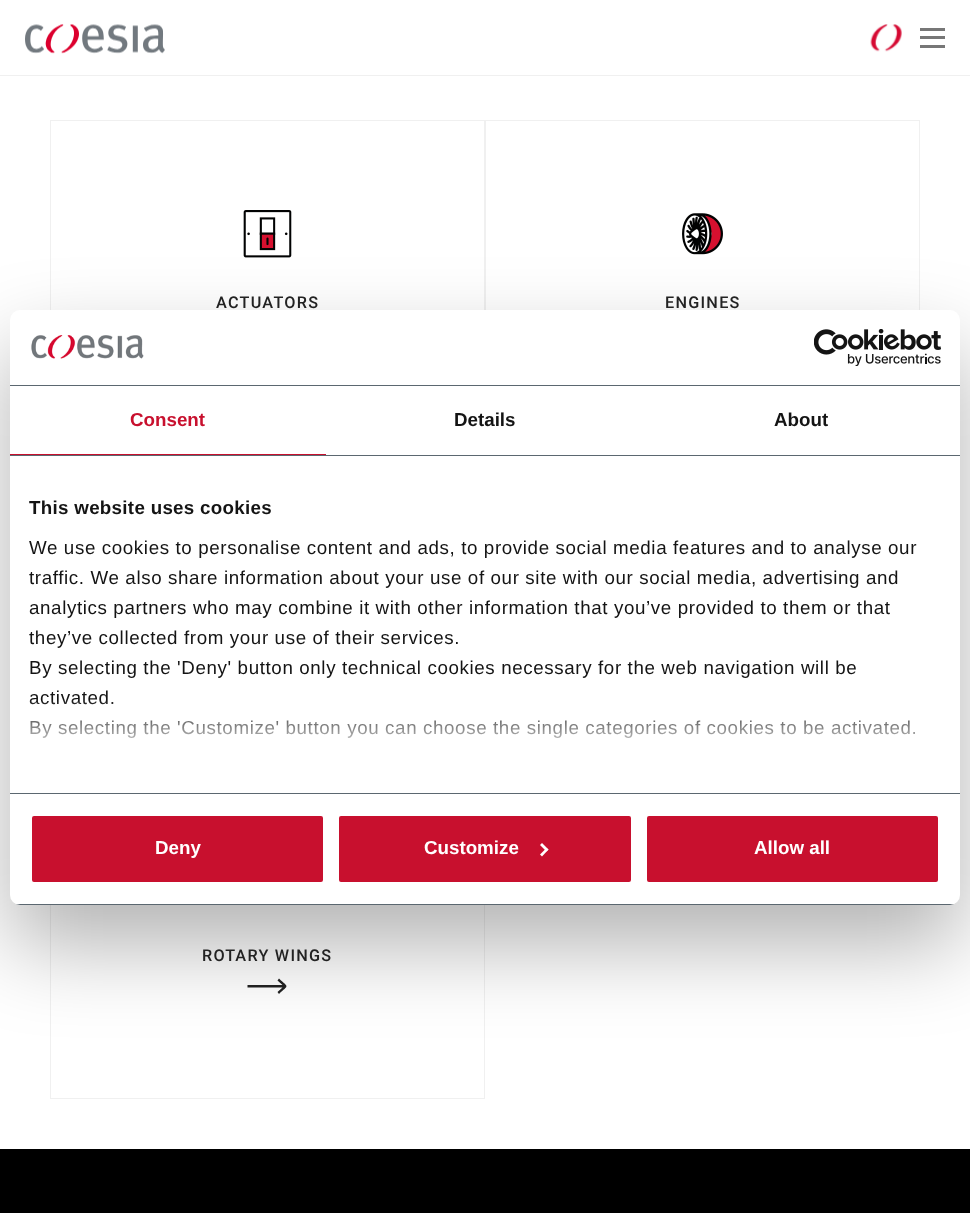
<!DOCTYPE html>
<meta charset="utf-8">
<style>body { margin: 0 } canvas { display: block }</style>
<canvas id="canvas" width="970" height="1213"></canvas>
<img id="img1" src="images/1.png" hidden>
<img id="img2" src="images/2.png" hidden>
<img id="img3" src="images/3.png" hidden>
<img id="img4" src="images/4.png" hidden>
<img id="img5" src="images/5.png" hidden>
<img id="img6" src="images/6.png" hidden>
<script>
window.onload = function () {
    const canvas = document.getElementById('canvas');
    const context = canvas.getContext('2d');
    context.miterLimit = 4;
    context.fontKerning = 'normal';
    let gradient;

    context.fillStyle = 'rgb(255, 255, 255)';
    context.fillRect(0, 0, 970, 1213);
    context.fillStyle = 'rgb(240, 240, 240)';
    context.fillRect(0, 75, 970, 1);
    context.drawImage(document.getElementById('img1'), 25, 24, 140, 30);
    context.drawImage(document.getElementById('img2'), 870, 24, 32, 28);
    context.fillStyle = 'rgb(119, 119, 119)';
    context.fillRect(920, 36, 25, 3);
    context.fillRect(920, 28, 25, 3);
    context.fillRect(920, 45, 25, 3);
    context.drawImage(document.getElementById('img3'), 243, 210, 49, 48);
    context.strokeStyle = 'rgb(240, 240, 240)';
    context.strokeRect(50.5, 120.5, 434, 325);
    context.drawImage(document.getElementById('img4'), 682, 213, 41, 42);
    context.strokeRect(485.5, 120.5, 434, 325);
    context.strokeRect(50.5, 773.5, 434, 325);
    context.fillStyle = 'rgb(34, 34, 34)';
    context.beginPath();
    context.moveTo(277.5, 980.5);
    context.lineTo(282.5, 985);
    context.lineTo(247.5, 985);
    context.lineTo(247.5, 987.5);
    context.lineTo(282.5, 987.5);
    context.lineTo(277.5, 992);
    context.lineTo(279, 994);
    context.bezierCurveTo(289, 984.5, 289, 988, 279, 978.5);
    context.closePath();
    context.fill();
    context.fillStyle = 'rgb(0, 0, 0)';
    context.fillRect(0, 1149, 970, 64);
    context.fillStyle = 'rgba(0, 0, 0, 0.3)';
    context.filter = 'blur(42.5px)';
    context.beginPath();
    context.roundRect(10, 350, 950, 595, 10);
    context.fill();
    context.filter = 'none';
    context.fillStyle = 'rgb(255, 255, 255)';
    context.beginPath();
    context.roundRect(10, 310, 950, 595, 10);
    context.fill();
    context.fillStyle = 'rgb(91, 103, 112)';
    context.fillRect(10, 385, 950, 1);
    context.drawImage(document.getElementById('img5'), 31, 335, 113, 24);
    context.drawImage(document.getElementById('img6'), 814, 329, 127, 37);
    context.fillRect(10, 455, 950, 1);
    context.fillStyle = 'rgb(200, 16, 46)';
    context.fillRect(10, 454, 316, 1);
    context.fillStyle = 'rgb(91, 103, 112)';
    context.fillRect(10, 793, 950, 1);
    context.save();
    context.beginPath();
    context.roundRect(10, 310, 950, 595, 10);
    context.clip();
    context.fillRect(10, 904, 950, 1);
    context.restore();
    context.fillStyle = 'rgb(200, 16, 46)';
    context.beginPath();
    context.roundRect(30.5, 814.5, 294, 69, 3.5);
    context.fill();
    context.strokeStyle = 'rgb(255, 255, 255)';
    context.lineWidth = 3;
    context.stroke();
    context.beginPath();
    context.roundRect(337.5, 814.5, 295, 69, 3.5);
    context.fill();
    context.stroke();
    context.fillStyle = 'rgb(255, 255, 255)';
    context.beginPath();
    context.moveTo(542, 843);
    context.lineTo(548.5, 849.5);
    context.lineTo(546.5, 851.5);
    context.lineTo(540, 845);
    context.closePath();
    context.fill();
    context.beginPath();
    context.moveTo(546.5, 848);
    context.lineTo(548.5, 849.5);
    context.lineTo(542, 856.5);
    context.lineTo(540, 854.5);
    context.closePath();
    context.fill();
    context.fillStyle = 'rgb(200, 16, 46)';
    context.beginPath();
    context.roundRect(645.5, 814.5, 294, 69, 3.5);
    context.fill();
    context.stroke();
    context.letterSpacing = '1.25px';
    context.font = '500 16.25px Roboto';
    context.fillStyle = 'rgb(34, 34, 34)';
    context.fillText('ACTUATORS', 216, 308);
    context.fillText('ENGINES', 665, 308);
    context.fillText('ROTARY WINGS', 202, 961);
    context.letterSpacing = '0px';
    context.font = 'bold 18.75px Liberation Sans';
    context.fillStyle = 'rgb(200, 16, 46)';
    context.fillText('Consent', 130, 426);
    context.fillStyle = 'rgb(20, 20, 20)';
    context.fillText('Details', 454, 426);
    context.fillText('About', 774, 426);
    context.letterSpacing = '0.3px';
    context.fillText('This website uses cookies', 29, 514);
    context.letterSpacing = '0.62px';
    context.font = '18.75px Liberation Sans';
    context.fillText('We use cookies to personalise content and ads, to provide social media features and to analyse our', 29, 554);
    context.fillText('traffic. We also share information about your use of our site with our social media, advertising and', 29, 584);
    context.fillText('analytics partners who may combine it with other information that you’ve provided to them or that', 29, 614);
    context.fillText('they’ve collected from your use of their services.', 29, 644);
    context.fillText('By selecting the \'Deny\' button only technical cookies necessary for the web navigation will be', 29, 674);
    context.fillText('activated.', 29, 704);
    context.fillText('By selecting the \'Customize\' button you can choose the single categories of cookies to be activated.', 29, 734);
    gradient = context.createLinearGradient(477, 793, 477, 699);
    gradient.addColorStop(0, 'rgb(255, 255, 255)');
    gradient.addColorStop(0.5, 'rgba(255, 255, 255, 0.8)');
    gradient.addColorStop(1, 'rgba(255, 255, 255, 0)');
    context.fillStyle = gradient;
    context.fillRect(29, 700, 887, 38);
    context.letterSpacing = '0px';
    context.font = 'bold 18.75px Liberation Sans';
    context.fillStyle = 'rgb(255, 255, 255)';
    context.fillText('Deny', 155, 854);
    context.fillText('Customize', 424, 854);
    context.fillText('Allow all', 754, 854);
};
</script>
